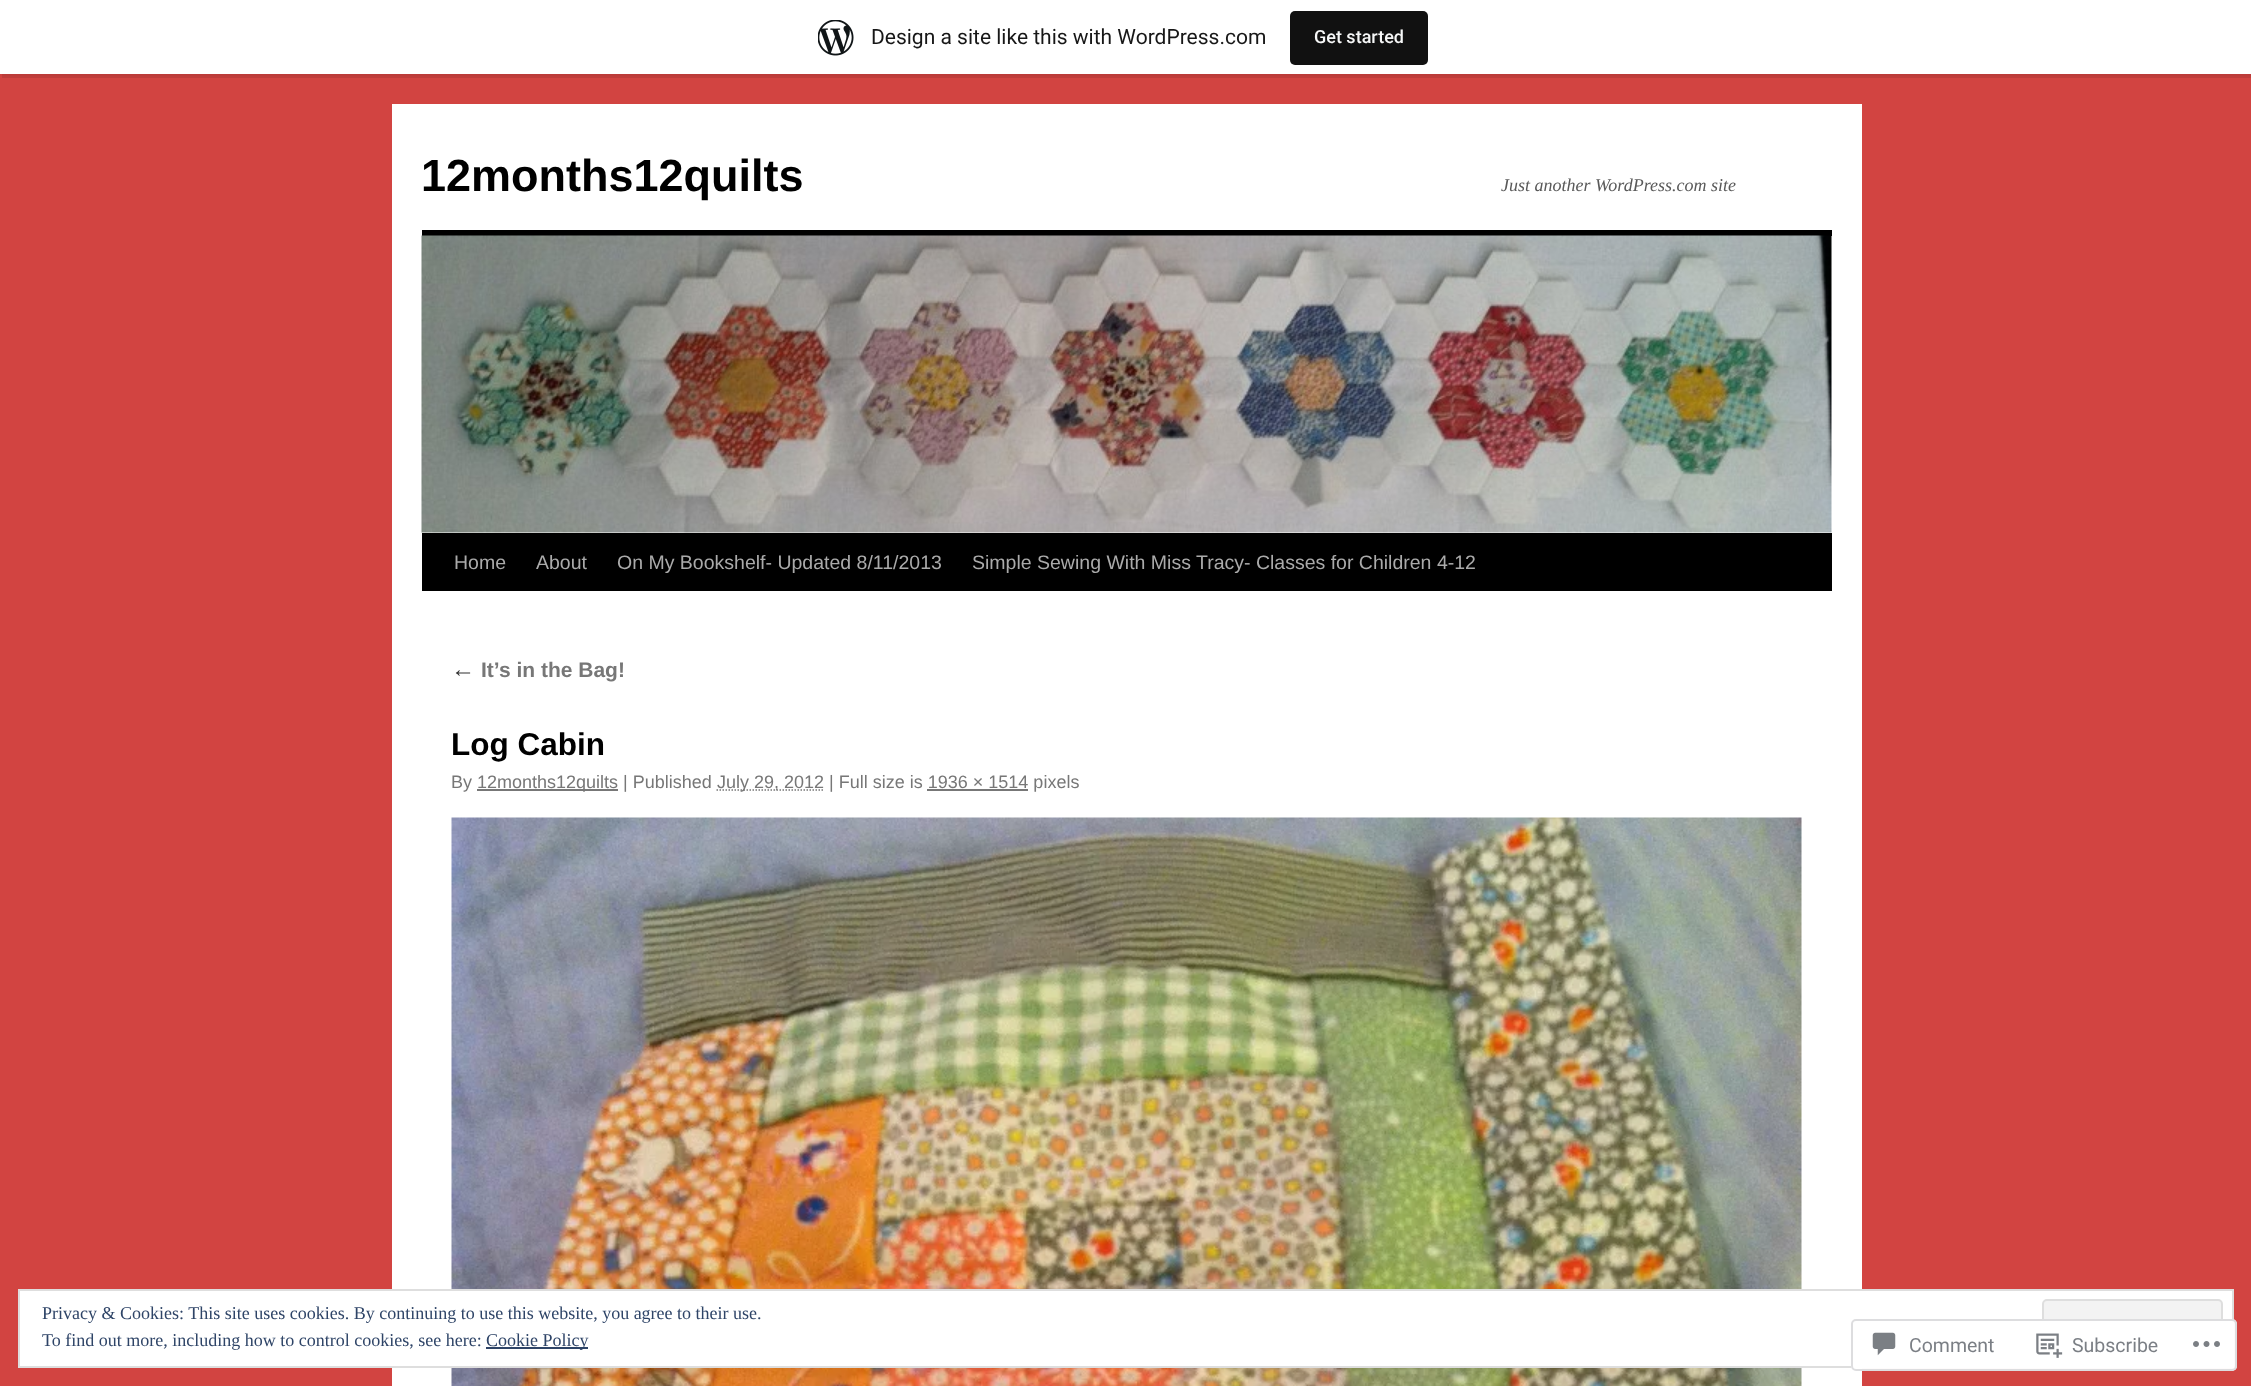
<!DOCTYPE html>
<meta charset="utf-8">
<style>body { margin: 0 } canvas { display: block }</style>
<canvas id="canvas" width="2251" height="1386"></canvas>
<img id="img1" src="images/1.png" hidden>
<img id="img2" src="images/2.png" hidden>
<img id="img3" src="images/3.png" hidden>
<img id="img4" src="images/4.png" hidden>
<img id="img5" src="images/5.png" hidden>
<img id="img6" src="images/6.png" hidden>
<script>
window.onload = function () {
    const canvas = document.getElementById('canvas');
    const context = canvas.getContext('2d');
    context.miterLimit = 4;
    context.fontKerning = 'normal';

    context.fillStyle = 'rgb(210, 68, 65)';
    context.fillRect(0, 0, 2251, 1386);
    context.fillStyle = 'rgba(0, 0, 0, 0.05)';
    context.filter = 'blur(1.5px)';
    context.beginPath();
    context.rect(0, 2, 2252, 73);
    context.fill();
    context.filter = 'none';
    context.fillStyle = 'rgba(0, 0, 0, 0.08)';
    context.beginPath();
    context.moveTo(2, 74);
    context.lineTo(2, 78);
    context.lineTo(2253, 78);
    context.lineTo(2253, 5);
    context.lineTo(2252, 5);
    context.lineTo(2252, 74);
    context.closePath();
    context.fill();
    context.fillStyle = 'rgb(255, 255, 255)';
    context.fillRect(0, 0, 2251, 74);
    context.drawImage(document.getElementById('img1'), 818, 20, 36, 36);
    context.fillStyle = 'rgb(17, 17, 17)';
    context.beginPath();
    context.roundRect(1290, 11, 138, 54, 5);
    context.fill();
    context.fillStyle = 'rgb(255, 255, 255)';
    context.fillRect(392, 104, 1470, 1282);
    context.fillStyle = 'rgb(0, 0, 0)';
    context.fillRect(422, 230, 1410, 6);
    context.fillRect(422, 533, 1410, 58);
    context.drawImage(document.getElementById('img2'), 421, 235, 1411, 298);
    context.fillStyle = 'rgb(119, 119, 119)';
    context.fillRect(477, 789, 141, 2);
    context.beginPath();
    context.moveTo(716.5, 790);
    context.lineTo(824, 790);
    context.strokeStyle = 'rgb(119, 119, 119)';
    context.lineWidth = 1.5;
    context.setLineDash([1.5, 1.5]);
    context.stroke();
    context.fillRect(927, 789, 101, 2);
    context.drawImage(document.getElementById('img3'), 451, 817, 1351, 569);
    context.fillStyle = 'rgb(255, 255, 255)';
    context.beginPath();
    context.rect(19, 1290, 2214, 77);
    context.fill();
    context.strokeStyle = 'rgb(222, 222, 222)';
    context.lineWidth = 2;
    context.setLineDash([]);
    context.stroke();
    context.fillStyle = 'rgb(243, 243, 243)';
    context.beginPath();
    context.roundRect(2043, 1300, 179, 57, 4);
    context.fill();
    context.stroke();
    context.fillStyle = 'rgb(46, 68, 103)';
    context.fillRect(486, 1347, 102, 2);
    context.fillStyle = 'rgba(255, 255, 255, 0.98)';
    context.beginPath();
    context.roundRect(1851, 1319, 386, 52, 5);
    context.fill();
    context.beginPath();
    context.roundRect(1852, 1320, 384, 50, 4);
    context.strokeStyle = 'rgba(220, 220, 222, 0.98)';
    context.stroke();
    context.drawImage(document.getElementById('img4'), 1872, 1332, 24, 24);
    context.drawImage(document.getElementById('img5'), 2036, 1333, 27, 25);
    context.drawImage(document.getElementById('img6'), 2193, 1341, 27, 6);
    context.font = '21px Roboto';
    context.fillStyle = 'rgb(23, 23, 23)';
    context.fillText('Design a site like this with WordPress.com', 871, 44);
    context.font = '500 18px Roboto';
    context.fillStyle = 'rgb(246, 247, 247)';
    context.fillText('Get started', 1314, 43);
    context.font = 'bold 45px Liberation Sans';
    context.fillStyle = 'rgb(0, 0, 0)';
    context.fillText('12months12quilts', 421, 191);
    context.font = 'italic 18px Liberation Serif';
    context.fillStyle = 'rgb(89, 89, 89)';
    context.fillText('Just another WordPress.com site', 1501, 191);
    context.font = '19.5px Liberation Sans';
    context.fillStyle = 'rgb(170, 170, 170)';
    context.fillText('Home', 454, 569);
    context.fillText('About', 536, 569);
    context.fillText('On My Bookshelf- Updated 8/11/2013', 617, 569);
    context.fillText('Simple Sewing With Miss Tracy- Classes for Children 4-12', 972, 569);
    context.font = 'italic 24px Liberation Serif';
    context.fillStyle = 'rgb(51, 51, 51)';
    context.fillText('←', 451, 677);
    context.font = 'bold 21px Liberation Sans';
    context.fillStyle = 'rgb(119, 119, 119)';
    context.fillText('It’s in the Bag!', 481, 677);
    context.font = 'bold 31.5px Liberation Sans';
    context.fillStyle = 'rgb(0, 0, 0)';
    context.fillText('Log Cabin', 451, 755);
    context.font = '18px Liberation Sans';
    context.fillStyle = 'rgb(119, 119, 119)';
    context.fillText('By', 451, 788);
    context.fillText('12months12quilts | Published', 477, 788);
    context.fillText('July 29, 2012 | Full size is 1936 × 1514 pixels', 717, 788);
    context.font = '18px Liberation Serif';
    context.fillStyle = 'rgb(46, 68, 103)';
    context.fillText('Privacy & Cookies: This site uses cookies. By continuing to use this website, you agree to their use.', 42, 1319);
    context.fillText('To find out more, including how to control cookies, see here:', 42, 1346);
    context.fillText('Cookie Policy', 486, 1346);
    context.font = '19.5px Roboto';
    context.fillStyle = 'rgb(123, 127, 133)';
    context.fillText('Comment', 1909, 1352);
    context.fillText('Subscribe', 2072, 1352);
};
</script>
